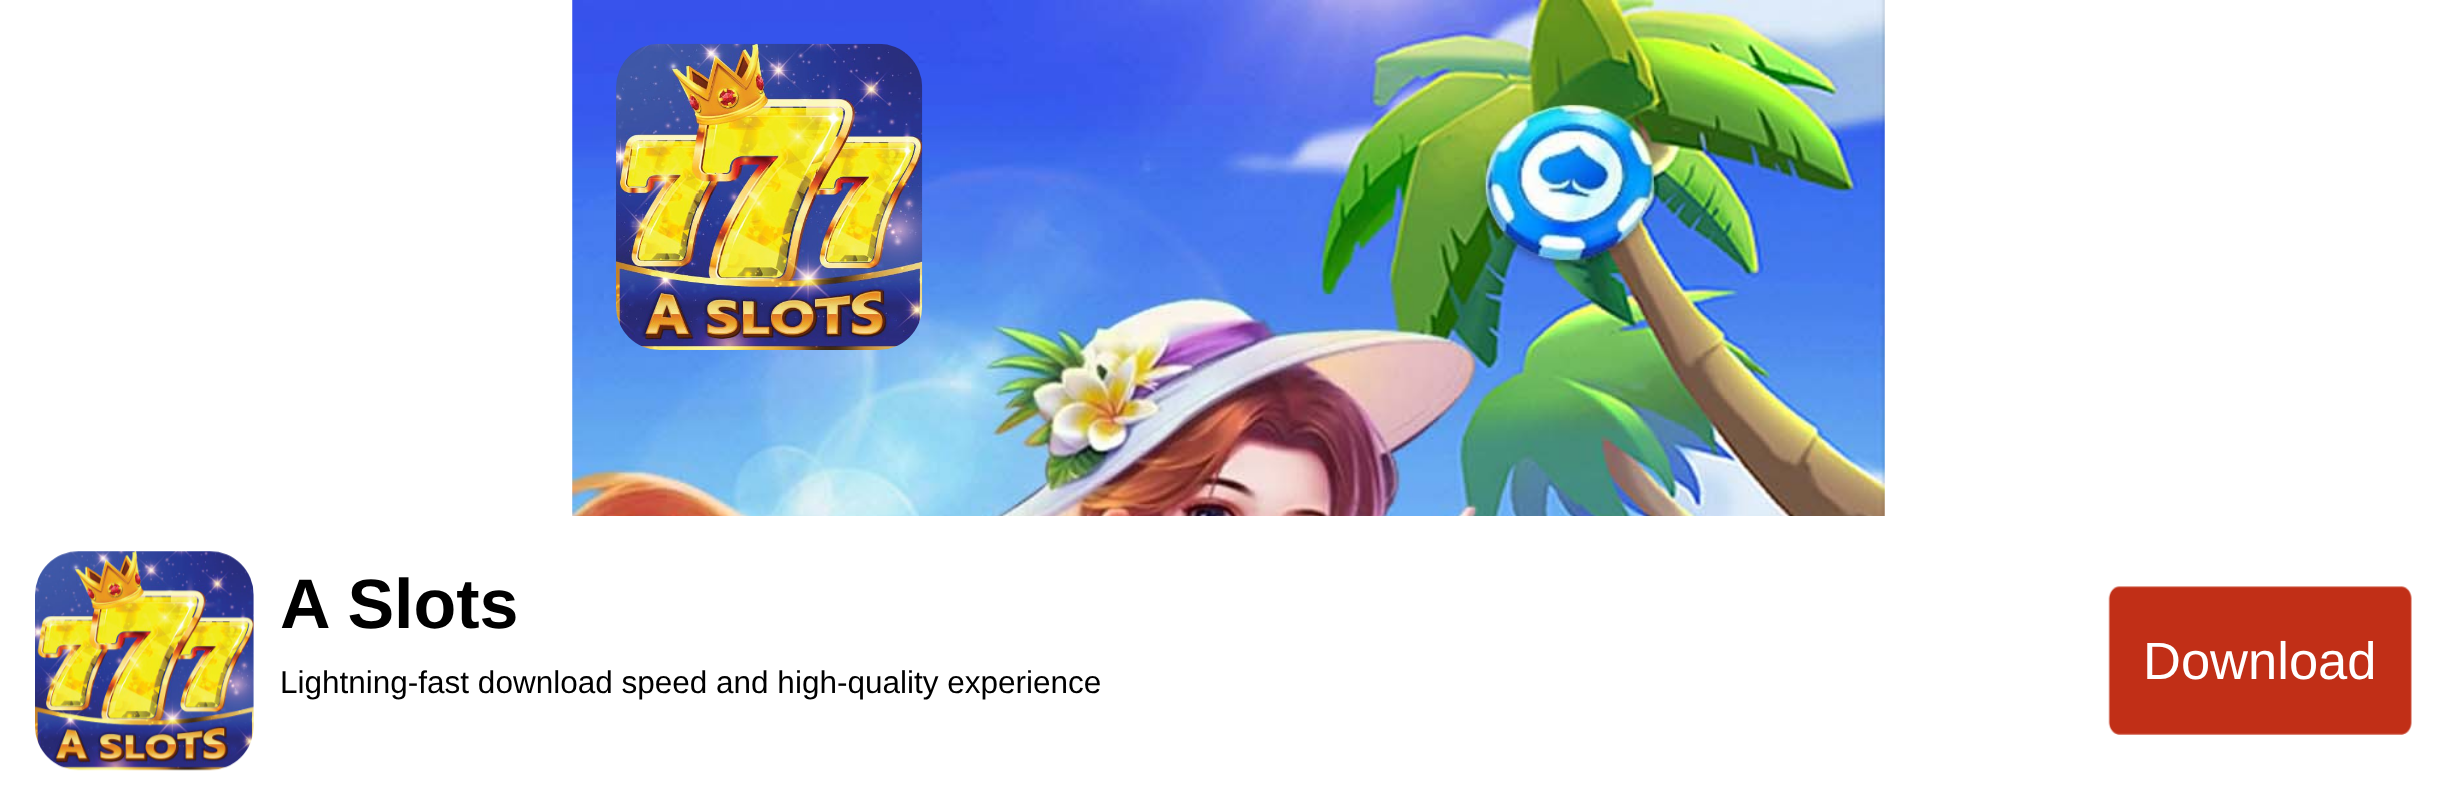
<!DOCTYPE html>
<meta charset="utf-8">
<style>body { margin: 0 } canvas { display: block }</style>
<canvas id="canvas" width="2455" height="805"></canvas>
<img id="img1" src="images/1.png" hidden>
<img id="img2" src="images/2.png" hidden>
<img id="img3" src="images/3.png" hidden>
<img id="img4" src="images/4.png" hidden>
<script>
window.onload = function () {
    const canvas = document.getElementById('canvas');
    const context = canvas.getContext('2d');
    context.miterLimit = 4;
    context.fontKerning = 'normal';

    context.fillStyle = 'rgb(255, 255, 255)';
    context.fillRect(0, 0, 2455, 805);
    context.drawImage(document.getElementById('img1'), 572, 0, 1313, 516);
    context.drawImage(document.getElementById('img2'), 616, 43, 307, 307);
    context.drawImage(document.getElementById('img3'), 35, 551, 219, 220);
    context.drawImage(document.getElementById('img4'), 2108, 586, 304, 149);
    context.font = 'bold 70px Liberation Sans';
    context.fillStyle = 'rgb(0, 0, 0)';
    context.fillText('A Slots', 280, 628);
    context.font = '31.5px Liberation Sans';
    context.fillText('Lightning-fast download speed and high-quality experience', 280, 693);
    context.font = '52.5px Liberation Sans';
    context.fillStyle = 'rgb(255, 255, 255)';
    context.fillText('Download', 2143, 679);
};
</script>
